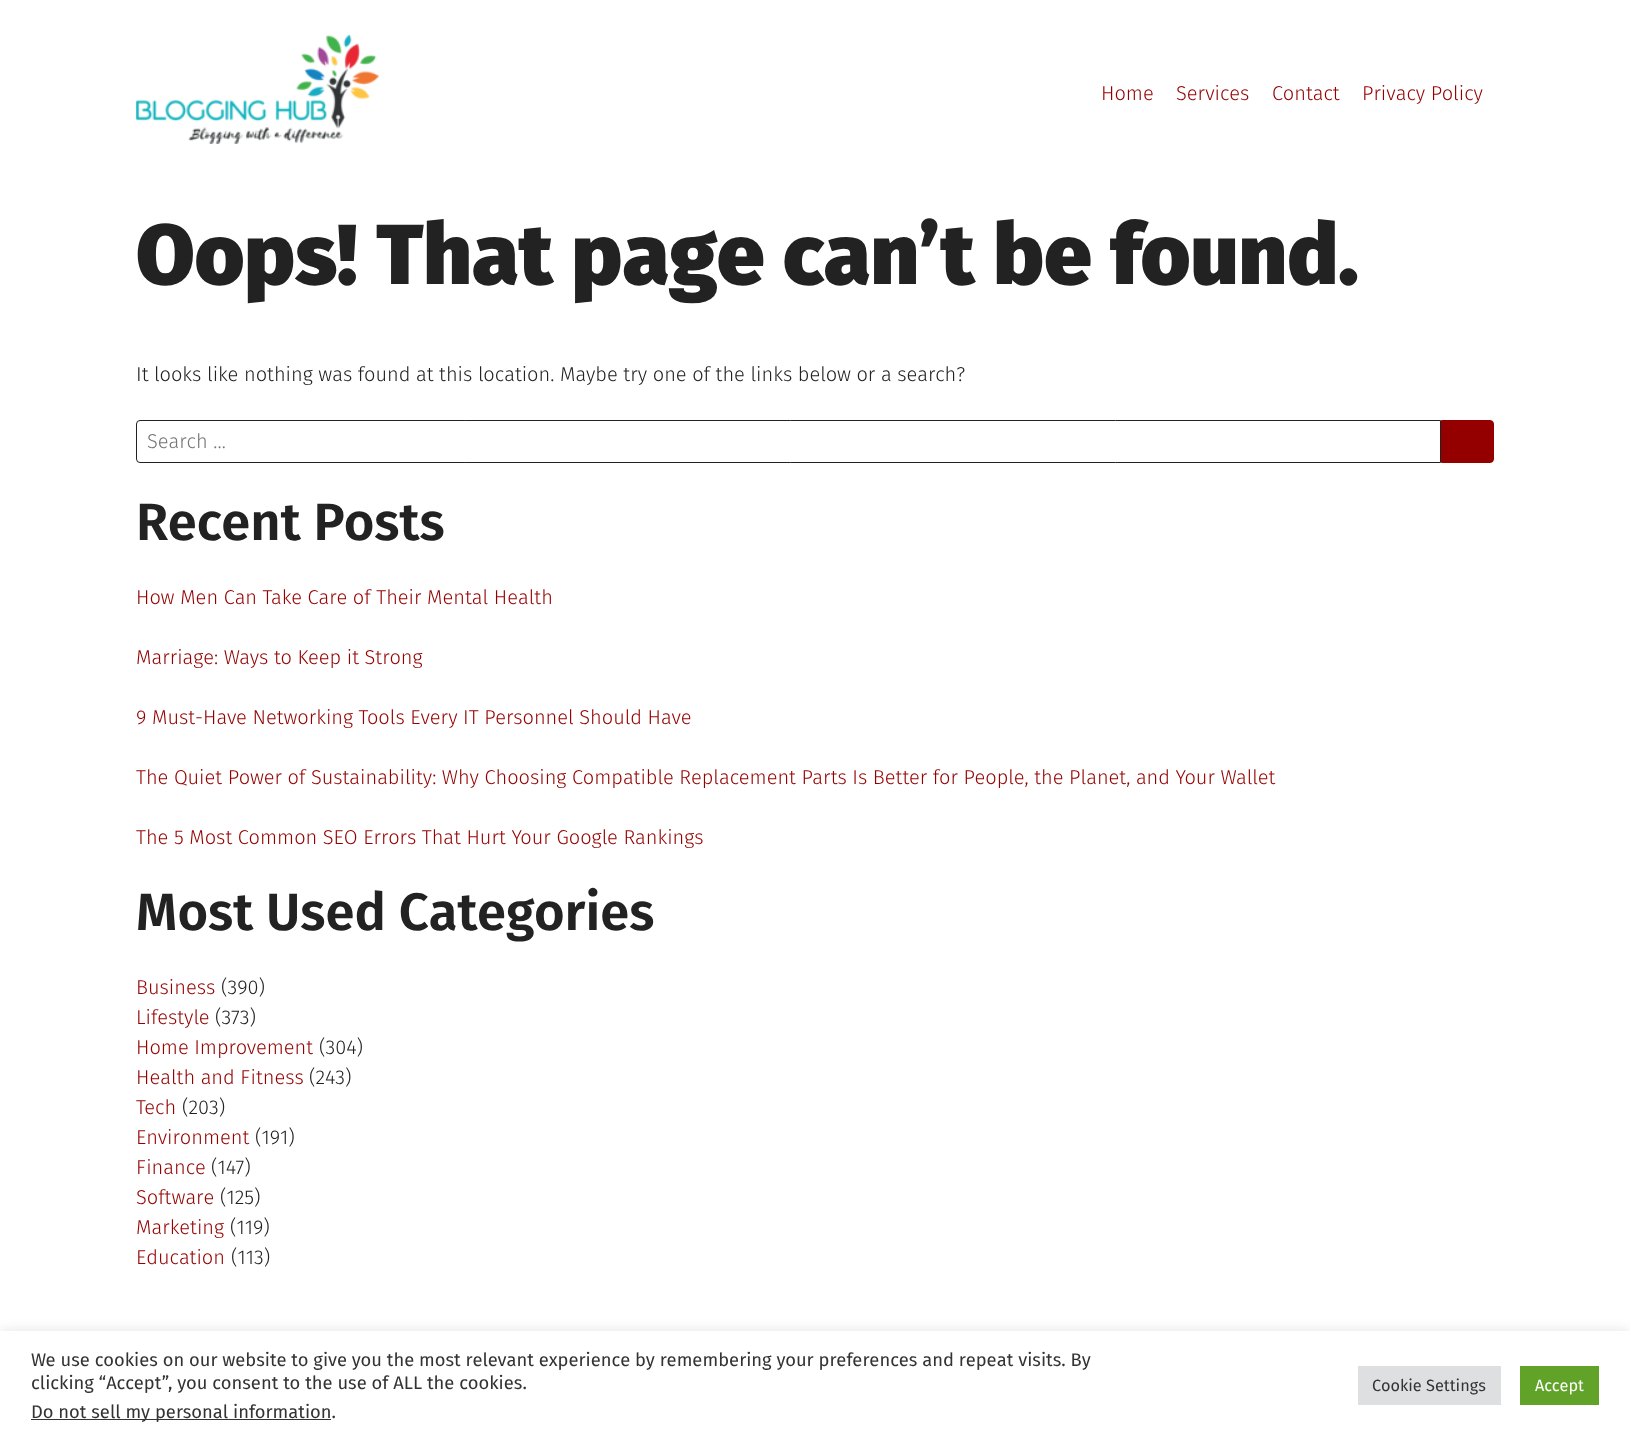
<!DOCTYPE html>
<meta charset="utf-8">
<style>body { margin: 0 } canvas { display: block }</style>
<canvas id="canvas" width="1630" height="1440"></canvas>
<img id="img1" src="images/1.png" hidden>
<script>
window.onload = function () {
    const canvas = document.getElementById('canvas');
    const context = canvas.getContext('2d');
    context.miterLimit = 4;
    context.fontKerning = 'normal';

    context.fillStyle = 'rgb(255, 255, 255)';
    context.fillRect(0, 0, 1630, 1440);
    context.drawImage(document.getElementById('img1'), 136, 35, 243, 109);
    context.beginPath();
    context.roundRect(136.5, 420.5, 1304, 42, [3.5, 0, 0, 3.5]);
    context.strokeStyle = 'rgb(34, 34, 34)';
    context.stroke();
    context.fillStyle = 'rgb(148, 0, 0)';
    context.beginPath();
    context.roundRect(1441.5, 420.5, 52, 42, [0, 3.5, 3.5, 0]);
    context.fill();
    context.strokeStyle = 'rgb(148, 0, 0)';
    context.stroke();
    context.fillStyle = 'rgba(172, 171, 171, 0.3)';
    context.filter = 'blur(6px)';
    context.beginPath();
    context.rect(0, 1330, 1630, 109);
    context.fill();
    context.filter = 'none';
    context.fillStyle = 'rgb(255, 255, 255)';
    context.fillRect(0, 1331, 1630, 109);
    context.fillStyle = 'rgb(51, 51, 51)';
    context.fillRect(31, 1419, 300, 1);
    context.fillStyle = 'rgb(222, 223, 224)';
    context.fillRect(1358, 1366, 143, 39);
    context.fillStyle = 'rgb(97, 162, 41)';
    context.fillRect(1520, 1366, 79, 39);
    context.font = '300 20px Fira Sans';
    context.fillStyle = 'rgb(148, 0, 0)';
    context.fillText('Home', 1101, 100);
    context.fillText('Services', 1176, 100);
    context.fillText('Contact', 1272, 100);
    context.fillText('Privacy Policy', 1362, 100);
    context.font = '900 85px Fira Sans';
    context.fillStyle = 'rgb(34, 34, 34)';
    context.fillText('Oops! That page can’t be found.', 136, 284);
    context.font = '300 20px Fira Sans';
    context.fillText('It looks like nothing was found at this location. Maybe try one of the links below or a search?', 136, 381);
    context.fillStyle = 'rgb(117, 117, 117)';
    context.fillText('Search …', 147, 448);
    context.font = '600 52.5px Fira Sans';
    context.fillStyle = 'rgb(34, 34, 34)';
    context.fillText('Recent Posts', 136, 540);
    context.font = '300 20px Fira Sans';
    context.fillStyle = 'rgb(148, 0, 0)';
    context.fillText('How Men Can Take Care of Their Mental Health', 136, 604);
    context.fillText('Marriage: Ways to Keep it Strong', 136, 664);
    context.fillText('9 Must-Have Networking Tools Every IT Personnel Should Have', 136, 724);
    context.fillText('The Quiet Power of Sustainability: Why Choosing Compatible Replacement Parts Is Better for People, the Planet, and Your Wallet', 136, 784);
    context.fillText('The 5 Most Common SEO Errors That Hurt Your Google Rankings', 136, 844);
    context.font = '600 52.5px Fira Sans';
    context.fillStyle = 'rgb(34, 34, 34)';
    context.fillText('Most Used Categories', 136, 930);
    context.font = '300 20px Fira Sans';
    context.fillStyle = 'rgb(148, 0, 0)';
    context.fillText('Business', 136, 994);
    context.fillStyle = 'rgb(34, 34, 34)';
    context.fillText('(390)', 221, 994);
    context.fillStyle = 'rgb(148, 0, 0)';
    context.fillText('Lifestyle', 136, 1024);
    context.fillStyle = 'rgb(34, 34, 34)';
    context.fillText('(373)', 215, 1024);
    context.fillStyle = 'rgb(148, 0, 0)';
    context.fillText('Home Improvement', 136, 1054);
    context.fillStyle = 'rgb(34, 34, 34)';
    context.fillText('(304)', 319, 1054);
    context.fillStyle = 'rgb(148, 0, 0)';
    context.fillText('Health and Fitness', 136, 1084);
    context.fillStyle = 'rgb(34, 34, 34)';
    context.fillText('(243)', 309, 1084);
    context.fillStyle = 'rgb(148, 0, 0)';
    context.fillText('Tech', 136, 1114);
    context.fillStyle = 'rgb(34, 34, 34)';
    context.fillText('(203)', 182, 1114);
    context.fillStyle = 'rgb(148, 0, 0)';
    context.fillText('Environment', 136, 1144);
    context.fillStyle = 'rgb(34, 34, 34)';
    context.fillText('(191)', 255, 1144);
    context.fillStyle = 'rgb(148, 0, 0)';
    context.fillText('Finance', 136, 1174);
    context.fillStyle = 'rgb(34, 34, 34)';
    context.fillText('(147)', 211, 1174);
    context.fillStyle = 'rgb(148, 0, 0)';
    context.fillText('Software', 136, 1204);
    context.fillStyle = 'rgb(34, 34, 34)';
    context.fillText('(125)', 220, 1204);
    context.fillStyle = 'rgb(148, 0, 0)';
    context.fillText('Marketing', 136, 1234);
    context.fillStyle = 'rgb(34, 34, 34)';
    context.fillText('(119)', 230, 1234);
    context.fillStyle = 'rgb(148, 0, 0)';
    context.fillText('Education', 136, 1264);
    context.fillStyle = 'rgb(34, 34, 34)';
    context.fillText('(113)', 231, 1264);
    context.font = '18.33px Fira Sans';
    context.fillStyle = 'rgb(51, 51, 51)';
    context.fillText('We use cookies on our website to give you the most relevant experience by remembering your preferences and repeat visits. By', 31, 1366);
    context.fillText('clicking “Accept”, you consent to the use of ALL the cookies.', 31, 1389);
    context.fillText('Do not sell my personal information.', 31, 1418);
    context.font = '16.25px Fira Sans';
    context.fillText('Cookie Settings', 1372, 1391);
    context.fillStyle = 'rgb(255, 255, 255)';
    context.fillText('Accept', 1535, 1391);
};
</script>
